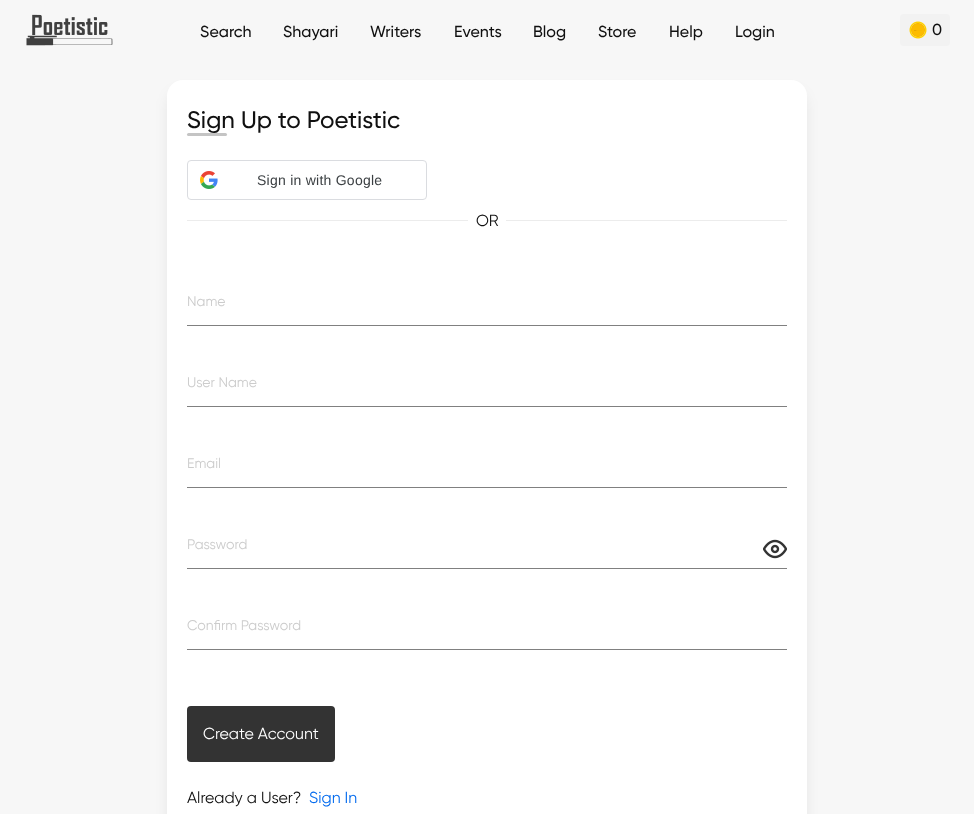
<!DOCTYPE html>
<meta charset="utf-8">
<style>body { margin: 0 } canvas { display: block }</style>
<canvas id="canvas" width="974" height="814"></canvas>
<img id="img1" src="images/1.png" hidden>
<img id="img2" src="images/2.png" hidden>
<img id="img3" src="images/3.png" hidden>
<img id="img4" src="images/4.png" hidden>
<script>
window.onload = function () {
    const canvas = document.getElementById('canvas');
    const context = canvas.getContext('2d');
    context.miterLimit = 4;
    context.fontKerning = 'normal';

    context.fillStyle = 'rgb(247, 247, 247)';
    context.fillRect(0, 0, 974, 814);
    context.drawImage(document.getElementById('img1'), 26, 14, 87, 32);
    context.fillStyle = 'rgb(242, 242, 242)';
    context.beginPath();
    context.roundRect(900, 14, 50, 32, 4);
    context.fill();
    context.drawImage(document.getElementById('img2'), 909, 21, 18, 18);
    context.fillStyle = 'rgba(0, 0, 0, 0.1)';
    context.filter = 'blur(7.5px)';
    context.beginPath();
    context.roundRect(170, 93, 634, 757, 13);
    context.fill();
    context.filter = 'none';
    context.fillStyle = 'rgb(255, 255, 255)';
    context.beginPath();
    context.moveTo(183, 80);
    context.lineTo(791, 80);
    context.bezierCurveTo(800, 80, 807, 87, 807, 96);
    context.lineTo(807, 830);
    context.lineTo(167, 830);
    context.lineTo(167, 96);
    context.bezierCurveTo(167, 87, 174, 80, 183, 80);
    context.closePath();
    context.fill();
    context.beginPath();
    context.roundRect(187.5, 160.5, 239, 39, 3.5);
    context.strokeStyle = 'rgb(218, 220, 224)';
    context.stroke();
    context.drawImage(document.getElementById('img3'), 200, 171, 18, 18);
    context.fillStyle = 'rgb(236, 236, 236)';
    context.fillRect(187, 220, 600, 1);
    context.fillStyle = 'rgb(255, 255, 255)';
    context.beginPath();
    context.roundRect(468, 211, 38, 19, 4);
    context.fill();
    context.fillStyle = 'rgb(128, 128, 128)';
    context.fillRect(187, 325, 600, 1);
    context.fillRect(187, 406, 600, 1);
    context.fillRect(187, 487, 600, 1);
    context.drawImage(document.getElementById('img4'), 763, 539, 24, 20);
    context.fillRect(187, 568, 600, 1);
    context.fillRect(187, 649, 600, 1);
    context.fillStyle = 'rgb(51, 51, 51)';
    context.beginPath();
    context.roundRect(187, 706, 148, 56, 4);
    context.fill();
    context.font = '500 16px Gilroy';
    context.fillStyle = 'rgb(16, 16, 16)';
    context.fillText('Search', 200, 37);
    context.fillText('Shayari', 283, 37);
    context.fillText('Writers', 370, 37);
    context.fillText('Events', 454, 37);
    context.fillText('Blog', 533, 37);
    context.fillText('Store', 598, 37);
    context.fillText('Help', 669, 37);
    context.fillText('Login', 735, 37);
    context.fillText('0', 932, 35);
    context.font = '500 24px Gilroy';
    context.fillText('Sign Up to Poetistic', 187, 128);
    context.fillStyle = 'rgb(196, 196, 196)';
    context.beginPath();
    context.roundRect(187, 133, 40, 3, 1.5);
    context.fill();
    context.letterSpacing = '0.25px';
    context.font = '14px Liberation Sans';
    context.fillStyle = 'rgb(60, 64, 67)';
    context.fillText('Sign in with Google', 257, 185);
    context.letterSpacing = '0px';
    context.font = '16px Gilroy';
    context.fillStyle = 'rgb(16, 16, 16)';
    context.fillText('OR', 476, 226);
    context.font = '14px Gilroy';
    context.fillStyle = 'rgb(204, 204, 204)';
    context.fillText('Name', 187, 306);
    context.fillText('User Name', 187, 387);
    context.fillText('Email', 187, 468);
    context.fillText('Password', 187, 549);
    context.fillText('Confirm Password', 187, 630);
    context.font = '16px Gilroy';
    context.fillStyle = 'rgb(255, 255, 255)';
    context.fillText('Create Account', 203, 739);
    context.fillStyle = 'rgb(16, 16, 16)';
    context.fillText('Already a User?', 187, 803);
    context.fillStyle = 'rgb(2, 106, 238)';
    context.fillText('Sign In', 309, 803);
};
</script>
